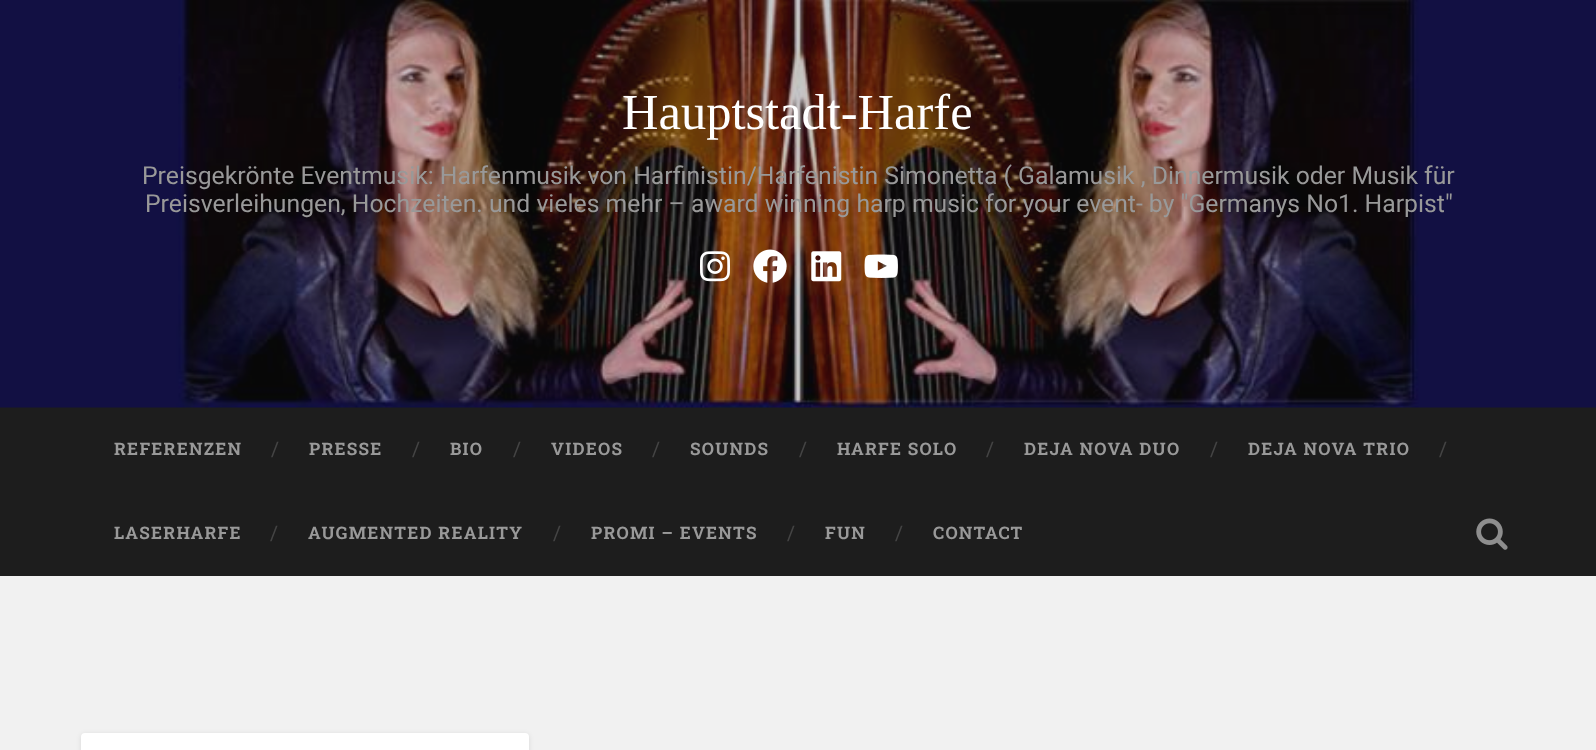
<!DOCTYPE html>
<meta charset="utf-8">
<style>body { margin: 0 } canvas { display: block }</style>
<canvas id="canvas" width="1596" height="750"></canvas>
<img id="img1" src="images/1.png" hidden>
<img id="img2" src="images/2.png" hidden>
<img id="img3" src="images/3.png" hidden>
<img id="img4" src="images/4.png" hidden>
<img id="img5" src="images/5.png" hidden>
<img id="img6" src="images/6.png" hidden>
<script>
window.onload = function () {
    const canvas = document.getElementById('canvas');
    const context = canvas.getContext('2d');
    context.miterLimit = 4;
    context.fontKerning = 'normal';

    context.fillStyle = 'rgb(241, 241, 241)';
    context.fillRect(0, 0, 1596, 750);
    context.fillStyle = 'rgb(29, 29, 29)';
    context.fillRect(0, 407, 1596, 169);
    context.drawImage(document.getElementById('img1'), 0, 0, 1596, 408);
    context.drawImage(document.getElementById('img2'), 700, 251, 30, 31);
    context.drawImage(document.getElementById('img3'), 753, 249, 34, 34);
    context.drawImage(document.getElementById('img4'), 811, 251, 31, 31);
    context.drawImage(document.getElementById('img5'), 864, 254, 34, 24);
    context.drawImage(document.getElementById('img6'), 1476, 518, 32, 32);
    context.fillStyle = 'rgba(0, 0, 0, 0.1)';
    context.filter = 'blur(2.5px)';
    context.beginPath();
    context.roundRect(81, 734, 448, 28, 4);
    context.fill();
    context.filter = 'none';
    context.fillStyle = 'rgb(255, 255, 255)';
    context.beginPath();
    context.roundRect(81, 733, 448, 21, 4);
    context.fill();
    context.font = '50.5px Liberation Serif';
    context.fillText('Hauptstadt-Harfe', 622, 129);
    context.font = '24.75px Roboto';
    context.fillStyle = 'rgb(153, 153, 153)';
    context.fillText('Preisgekrönte Eventmusik: Harfenmusik von Harfinistin/Harfenistin Simonetta ( Galamusik , Dinnermusik oder Musik für', 142, 184);
    context.fillText('Preisverleihungen, Hochzeiten. und vieles mehr – award winning harp music for your event- by "Germanys No1. Harpist"', 145, 212);
    context.letterSpacing = '1.25px';
    context.font = 'bold 17.25px Roboto Slab';
    context.fillText('REFERENZEN', 114, 455);
    context.letterSpacing = '0px';
    context.font = '20px Roboto Slab';
    context.fillStyle = 'rgb(68, 68, 68)';
    context.fillText('/', 271, 456);
    context.letterSpacing = '1.25px';
    context.font = 'bold 17.25px Roboto Slab';
    context.fillStyle = 'rgb(153, 153, 153)';
    context.fillText('PRESSE', 309, 455);
    context.letterSpacing = '0px';
    context.font = '20px Roboto Slab';
    context.fillStyle = 'rgb(68, 68, 68)';
    context.fillText('/', 412, 456);
    context.letterSpacing = '1.25px';
    context.font = 'bold 17.25px Roboto Slab';
    context.fillStyle = 'rgb(153, 153, 153)';
    context.fillText('BIO', 450, 455);
    context.letterSpacing = '0px';
    context.font = '20px Roboto Slab';
    context.fillStyle = 'rgb(68, 68, 68)';
    context.fillText('/', 513, 456);
    context.letterSpacing = '1.25px';
    context.font = 'bold 17.25px Roboto Slab';
    context.fillStyle = 'rgb(153, 153, 153)';
    context.fillText('VIDEOS', 551, 455);
    context.letterSpacing = '0px';
    context.font = '20px Roboto Slab';
    context.fillStyle = 'rgb(68, 68, 68)';
    context.fillText('/', 652, 456);
    context.letterSpacing = '1.25px';
    context.font = 'bold 17.25px Roboto Slab';
    context.fillStyle = 'rgb(153, 153, 153)';
    context.fillText('SOUNDS', 690, 455);
    context.letterSpacing = '0px';
    context.font = '20px Roboto Slab';
    context.fillStyle = 'rgb(68, 68, 68)';
    context.fillText('/', 799, 456);
    context.letterSpacing = '1.25px';
    context.font = 'bold 17.25px Roboto Slab';
    context.fillStyle = 'rgb(153, 153, 153)';
    context.fillText('HARFE SOLO', 837, 455);
    context.letterSpacing = '0px';
    context.font = '20px Roboto Slab';
    context.fillStyle = 'rgb(68, 68, 68)';
    context.fillText('/', 986, 456);
    context.letterSpacing = '1.25px';
    context.font = 'bold 17.25px Roboto Slab';
    context.fillStyle = 'rgb(153, 153, 153)';
    context.fillText('DEJA NOVA DUO', 1024, 455);
    context.letterSpacing = '0px';
    context.font = '20px Roboto Slab';
    context.fillStyle = 'rgb(68, 68, 68)';
    context.fillText('/', 1210, 456);
    context.letterSpacing = '1.25px';
    context.font = 'bold 17.25px Roboto Slab';
    context.fillStyle = 'rgb(153, 153, 153)';
    context.fillText('DEJA NOVA TRIO', 1248, 455);
    context.letterSpacing = '0px';
    context.font = '20px Roboto Slab';
    context.fillStyle = 'rgb(68, 68, 68)';
    context.fillText('/', 1439, 456);
    context.letterSpacing = '1.25px';
    context.font = 'bold 17.25px Roboto Slab';
    context.fillStyle = 'rgb(153, 153, 153)';
    context.fillText('LASERHARFE', 114, 539);
    context.letterSpacing = '0px';
    context.font = '20px Roboto Slab';
    context.fillStyle = 'rgb(68, 68, 68)';
    context.fillText('/', 270, 540);
    context.letterSpacing = '1.25px';
    context.font = 'bold 17.25px Roboto Slab';
    context.fillStyle = 'rgb(153, 153, 153)';
    context.fillText('AUGMENTED REALITY', 308, 539);
    context.letterSpacing = '0px';
    context.font = '20px Roboto Slab';
    context.fillStyle = 'rgb(68, 68, 68)';
    context.fillText('/', 553, 540);
    context.letterSpacing = '1.25px';
    context.font = 'bold 17.25px Roboto Slab';
    context.fillStyle = 'rgb(153, 153, 153)';
    context.fillText('PROMI – EVENTS', 591, 539);
    context.letterSpacing = '0px';
    context.font = '20px Roboto Slab';
    context.fillStyle = 'rgb(68, 68, 68)';
    context.fillText('/', 787, 540);
    context.letterSpacing = '1.25px';
    context.font = 'bold 17.25px Roboto Slab';
    context.fillStyle = 'rgb(153, 153, 153)';
    context.fillText('FUN', 825, 539);
    context.letterSpacing = '0px';
    context.font = '20px Roboto Slab';
    context.fillStyle = 'rgb(68, 68, 68)';
    context.fillText('/', 895, 540);
    context.letterSpacing = '1.25px';
    context.font = 'bold 17.25px Roboto Slab';
    context.fillStyle = 'rgb(153, 153, 153)';
    context.fillText('CONTACT', 933, 539);
};
</script>
